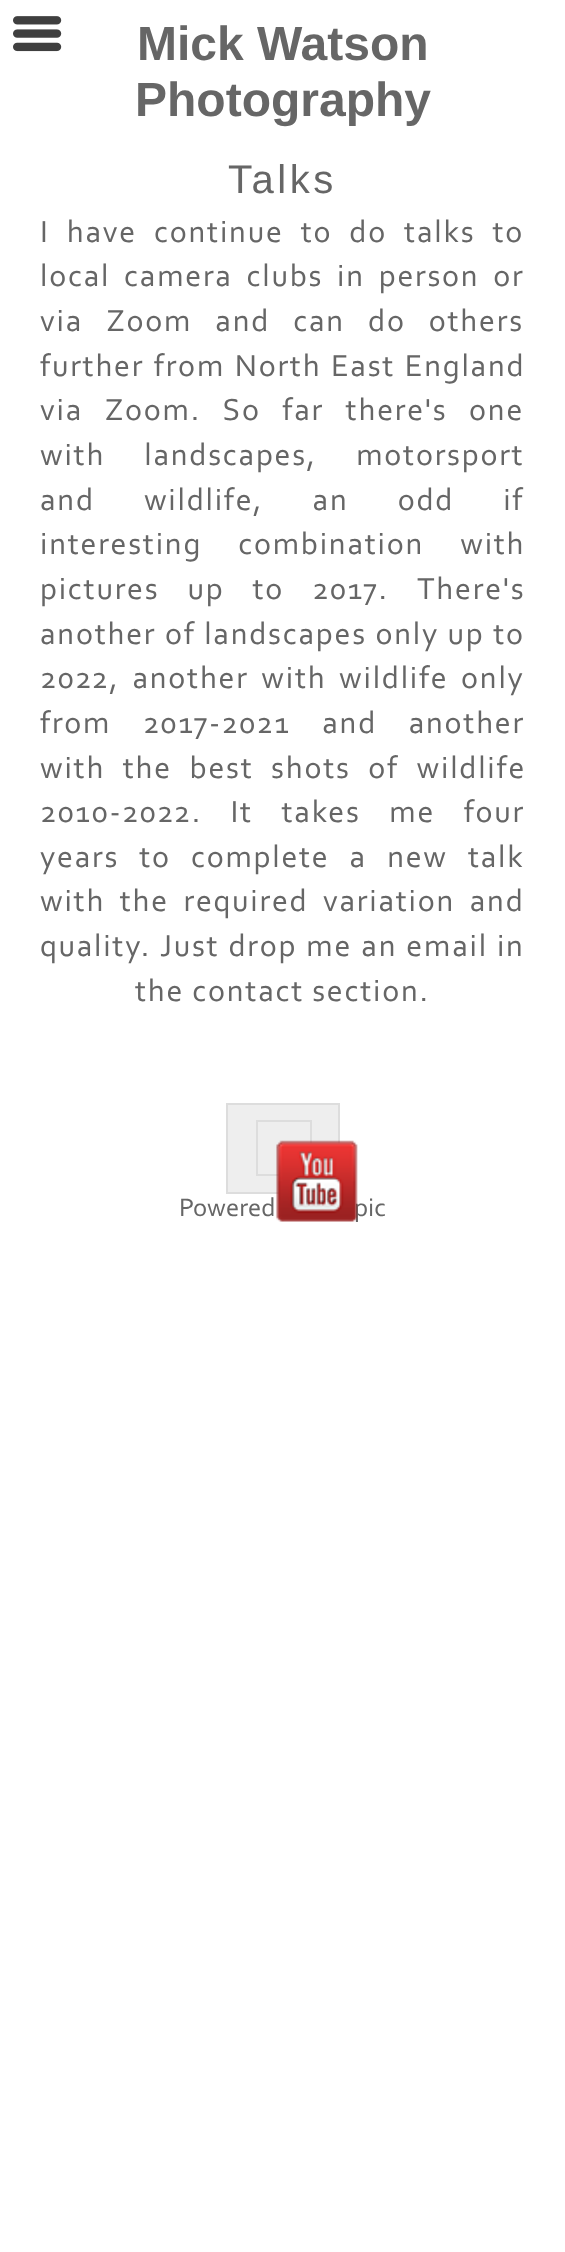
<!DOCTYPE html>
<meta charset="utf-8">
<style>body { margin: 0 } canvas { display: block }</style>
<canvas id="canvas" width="565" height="2252"></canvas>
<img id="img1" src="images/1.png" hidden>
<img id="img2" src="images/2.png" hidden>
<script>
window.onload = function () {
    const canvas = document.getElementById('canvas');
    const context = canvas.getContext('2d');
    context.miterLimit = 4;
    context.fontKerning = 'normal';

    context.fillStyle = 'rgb(255, 255, 255)';
    context.fillRect(0, 0, 565, 2252);
    context.drawImage(document.getElementById('img1'), 13, 16, 49, 36);
    context.fillStyle = 'rgb(238, 238, 238)';
    context.beginPath();
    context.rect(227, 1104, 112, 89);
    context.fill();
    context.strokeStyle = 'rgb(221, 221, 221)';
    context.lineWidth = 2;
    context.stroke();
    context.strokeRect(257, 1121, 54, 54);
    context.font = 'bold 48px Liberation Sans';
    context.fillStyle = 'rgb(102, 102, 102)';
    context.fillText('Mick Watson', 137, 60);
    context.fillText('Photography', 135, 116);
    context.letterSpacing = '3.5px';
    context.font = '40px Liberation Sans';
    context.fillText('Talks', 228, 193);
    context.letterSpacing = '1.75px';
    context.wordSpacing = '9px';
    context.font = '31.9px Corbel';
    context.fillText('I have continue to do talks to', 40, 242);
    context.wordSpacing = '5.75px';
    context.fillText('local camera clubs in person or', 40, 286);
    context.wordSpacing = '15px';
    context.fillText('via Zoom and can do others', 40, 331);
    context.wordSpacing = '1.5px';
    context.fillText('further from North East England', 40, 376);
    context.wordSpacing = '13.5px';
    context.fillText('via Zoom. So far there\'s one', 40, 420);
    context.wordSpacing = '31px';
    context.fillText('with landscapes, motorsport', 40, 465);
    context.wordSpacing = '41px';
    context.fillText('and wildlife, an odd if', 40, 510);
    context.wordSpacing = '28px';
    context.fillText('interesting combination with', 40, 554);
    context.wordSpacing = '20px';
    context.fillText('pictures up to 2017. There\'s', 40, 599);
    context.wordSpacing = '0.5px';
    context.fillText('another of landscapes only up to', 40, 644);
    context.wordSpacing = '4.5px';
    context.fillText('2022, another with wildlife only', 40, 688);
    context.wordSpacing = '23.5px';
    context.fillText('from 2017-2021 and another', 40, 733);
    context.wordSpacing = '9.5px';
    context.fillText('with the best shots of wildlife', 40, 778);
    context.wordSpacing = '20.5px';
    context.fillText('2010-2022. It takes me four', 40, 822);
    context.wordSpacing = '12px';
    context.fillText('years to complete a new talk', 40, 867);
    context.wordSpacing = '6.5px';
    context.fillText('with the required variation and', 40, 911);
    context.wordSpacing = '1px';
    context.fillText('quality. Just drop me an email in', 40, 956);
    context.wordSpacing = '0px';
    context.fillText('the contact section.', 135, 1001);
    context.letterSpacing = '0px';
    context.font = '26.5px Corbel';
    context.fillText('Powered', 179, 1216);
    context.fillText('pic', 354, 1216);
    context.drawImage(document.getElementById('img2'), 276, 1140, 82, 82);
};
</script>
